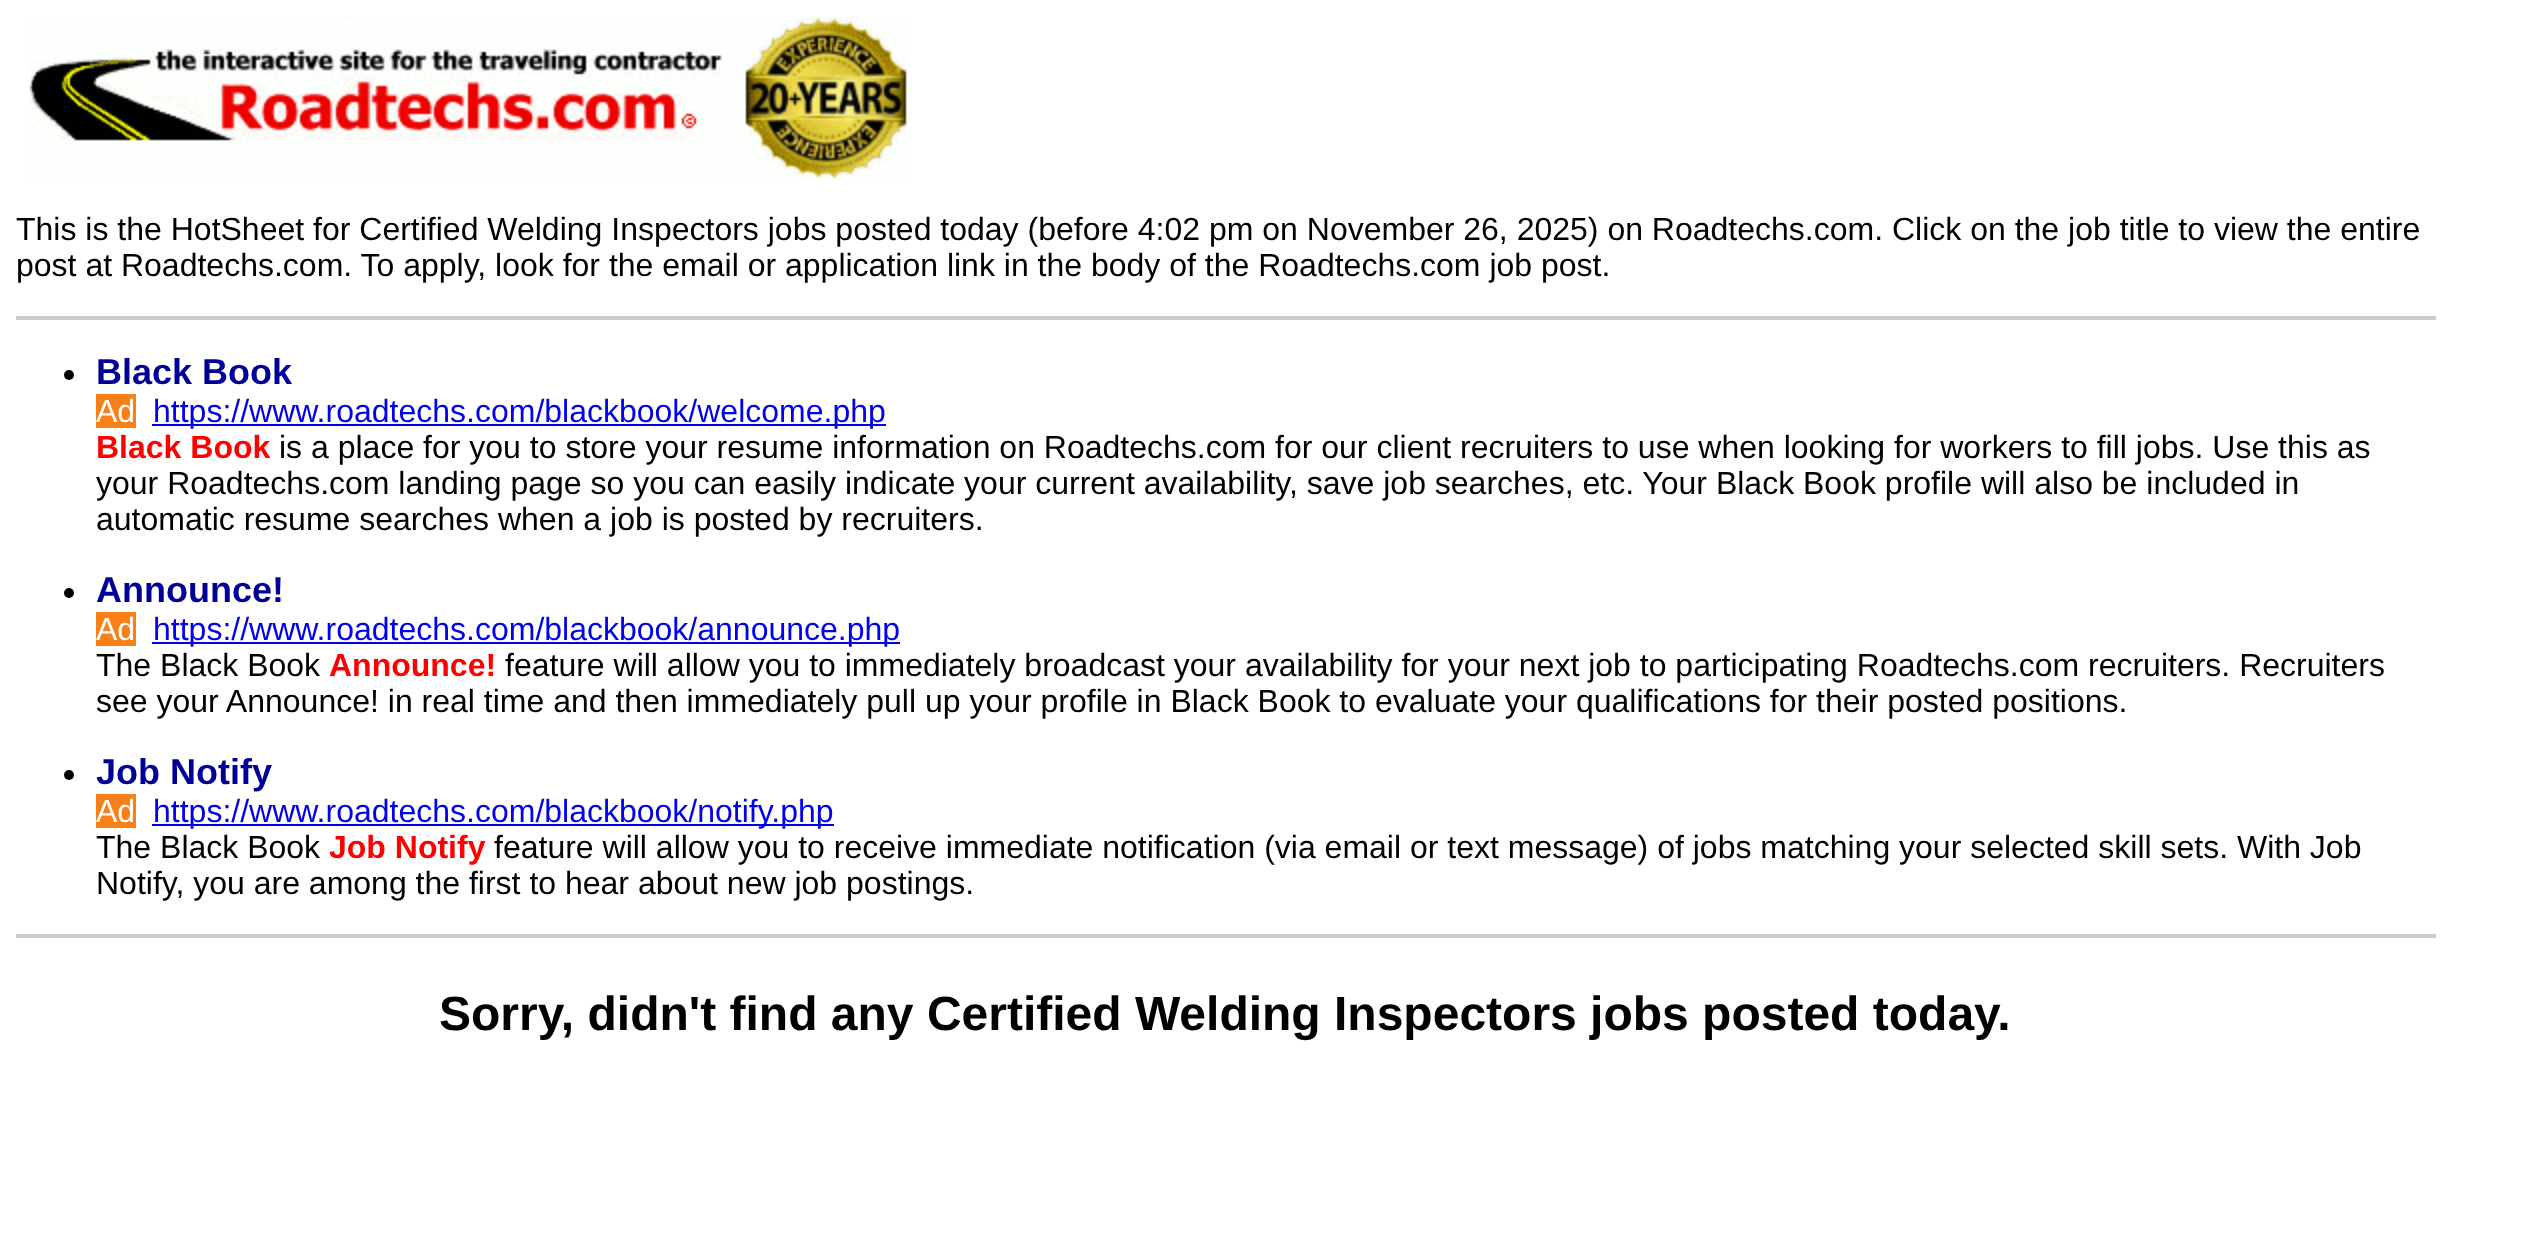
<!DOCTYPE html>
<meta charset="utf-8">
<style>body { margin: 0 } canvas { display: block }</style>
<canvas id="canvas" width="2543" height="1248"></canvas>
<img id="img1" src="images/1.png" hidden>
<script>
window.onload = function () {
    const canvas = document.getElementById('canvas');
    const context = canvas.getContext('2d');
    context.miterLimit = 4;
    context.fontKerning = 'normal';

    context.fillStyle = 'rgb(255, 255, 255)';
    context.fillRect(0, 0, 2543, 1248);
    context.drawImage(document.getElementById('img1'), 29, 16, 878, 163);
    context.fillStyle = 'rgb(204, 204, 204)';
    context.fillRect(16, 316, 2420, 4);
    context.fillStyle = 'rgb(0, 0, 0)';
    context.beginPath();
    context.arc(69, 375, 5, 0, 2 * Math.PI);
    context.fill();
    context.fillStyle = 'rgb(248, 128, 23)';
    context.fillRect(96, 394, 40, 34);
    context.fillStyle = 'rgb(0, 0, 238)';
    context.fillRect(152, 424, 734, 2);
    context.fillStyle = 'rgb(0, 0, 0)';
    context.beginPath();
    context.arc(69, 593, 5, 0, 2 * Math.PI);
    context.fill();
    context.fillStyle = 'rgb(248, 128, 23)';
    context.fillRect(96, 612, 40, 34);
    context.fillStyle = 'rgb(0, 0, 238)';
    context.fillRect(152, 642, 748, 2);
    context.fillStyle = 'rgb(0, 0, 0)';
    context.beginPath();
    context.arc(69, 775, 5, 0, 2 * Math.PI);
    context.fill();
    context.fillStyle = 'rgb(248, 128, 23)';
    context.fillRect(96, 794, 40, 34);
    context.fillStyle = 'rgb(0, 0, 238)';
    context.fillRect(152, 824, 682, 2);
    context.fillStyle = 'rgb(204, 204, 204)';
    context.fillRect(16, 934, 2420, 4);
    context.font = '32px Liberation Sans';
    context.fillStyle = 'rgb(0, 0, 0)';
    context.fillText('This is the HotSheet for Certified Welding Inspectors jobs posted today (before 4:02 pm on November 26, 2025) on Roadtechs.com. Click on the job title to view the entire', 16, 240);
    context.fillText('post at Roadtechs.com. To apply, look for the email or application link in the body of the Roadtechs.com job post.', 16, 276);
    context.font = 'bold 36px Liberation Sans';
    context.fillStyle = 'rgb(0, 0, 153)';
    context.fillText('Black Book', 96, 384);
    context.font = '32px Liberation Sans';
    context.fillStyle = 'rgb(255, 255, 255)';
    context.fillText('Ad', 96, 422);
    context.fillStyle = 'rgb(0, 0, 238)';
    context.fillText('https://www.roadtechs.com/blackbook/welcome.php', 153, 422);
    context.font = 'bold 32px Liberation Sans';
    context.fillStyle = 'rgb(255, 0, 0)';
    context.fillText('Black Book', 96, 458);
    context.font = '32px Liberation Sans';
    context.fillStyle = 'rgb(0, 0, 0)';
    context.fillText('is a place for you to store your resume information on Roadtechs.com for our client recruiters to use when looking for workers to fill jobs. Use this as', 279, 458);
    context.fillText('your Roadtechs.com landing page so you can easily indicate your current availability, save job searches, etc. Your Black Book profile will also be included in', 96, 494);
    context.fillText('automatic resume searches when a job is posted by recruiters.', 96, 530);
    context.font = 'bold 36px Liberation Sans';
    context.fillStyle = 'rgb(0, 0, 153)';
    context.fillText('Announce!', 96, 602);
    context.font = '32px Liberation Sans';
    context.fillStyle = 'rgb(255, 255, 255)';
    context.fillText('Ad', 96, 640);
    context.fillStyle = 'rgb(0, 0, 238)';
    context.fillText('https://www.roadtechs.com/blackbook/announce.php', 153, 640);
    context.fillStyle = 'rgb(0, 0, 0)';
    context.fillText('The Black Book', 96, 676);
    context.font = 'bold 32px Liberation Sans';
    context.fillStyle = 'rgb(255, 0, 0)';
    context.fillText('Announce!', 329, 676);
    context.font = '32px Liberation Sans';
    context.fillStyle = 'rgb(0, 0, 0)';
    context.fillText('feature will allow you to immediately broadcast your availability for your next job to participating Roadtechs.com recruiters. Recruiters', 505, 676);
    context.fillText('see your Announce! in real time and then immediately pull up your profile in Black Book to evaluate your qualifications for their posted positions.', 96, 712);
    context.font = 'bold 36px Liberation Sans';
    context.fillStyle = 'rgb(0, 0, 153)';
    context.fillText('Job Notify', 96, 784);
    context.font = '32px Liberation Sans';
    context.fillStyle = 'rgb(255, 255, 255)';
    context.fillText('Ad', 96, 822);
    context.fillStyle = 'rgb(0, 0, 238)';
    context.fillText('https://www.roadtechs.com/blackbook/notify.php', 153, 822);
    context.fillStyle = 'rgb(0, 0, 0)';
    context.fillText('The Black Book', 96, 858);
    context.font = 'bold 32px Liberation Sans';
    context.fillStyle = 'rgb(255, 0, 0)';
    context.fillText('Job Notify', 329, 858);
    context.font = '32px Liberation Sans';
    context.fillStyle = 'rgb(0, 0, 0)';
    context.fillText('feature will allow you to receive immediate notification (via email or text message) of jobs matching your selected skill sets. With Job', 494, 858);
    context.fillText('Notify, you are among the first to hear about new job postings.', 96, 894);
    context.font = 'bold 48px Liberation Sans';
    context.fillText('Sorry, didn\'t find any Certified Welding Inspectors jobs posted today.', 439, 1030);
};
</script>
